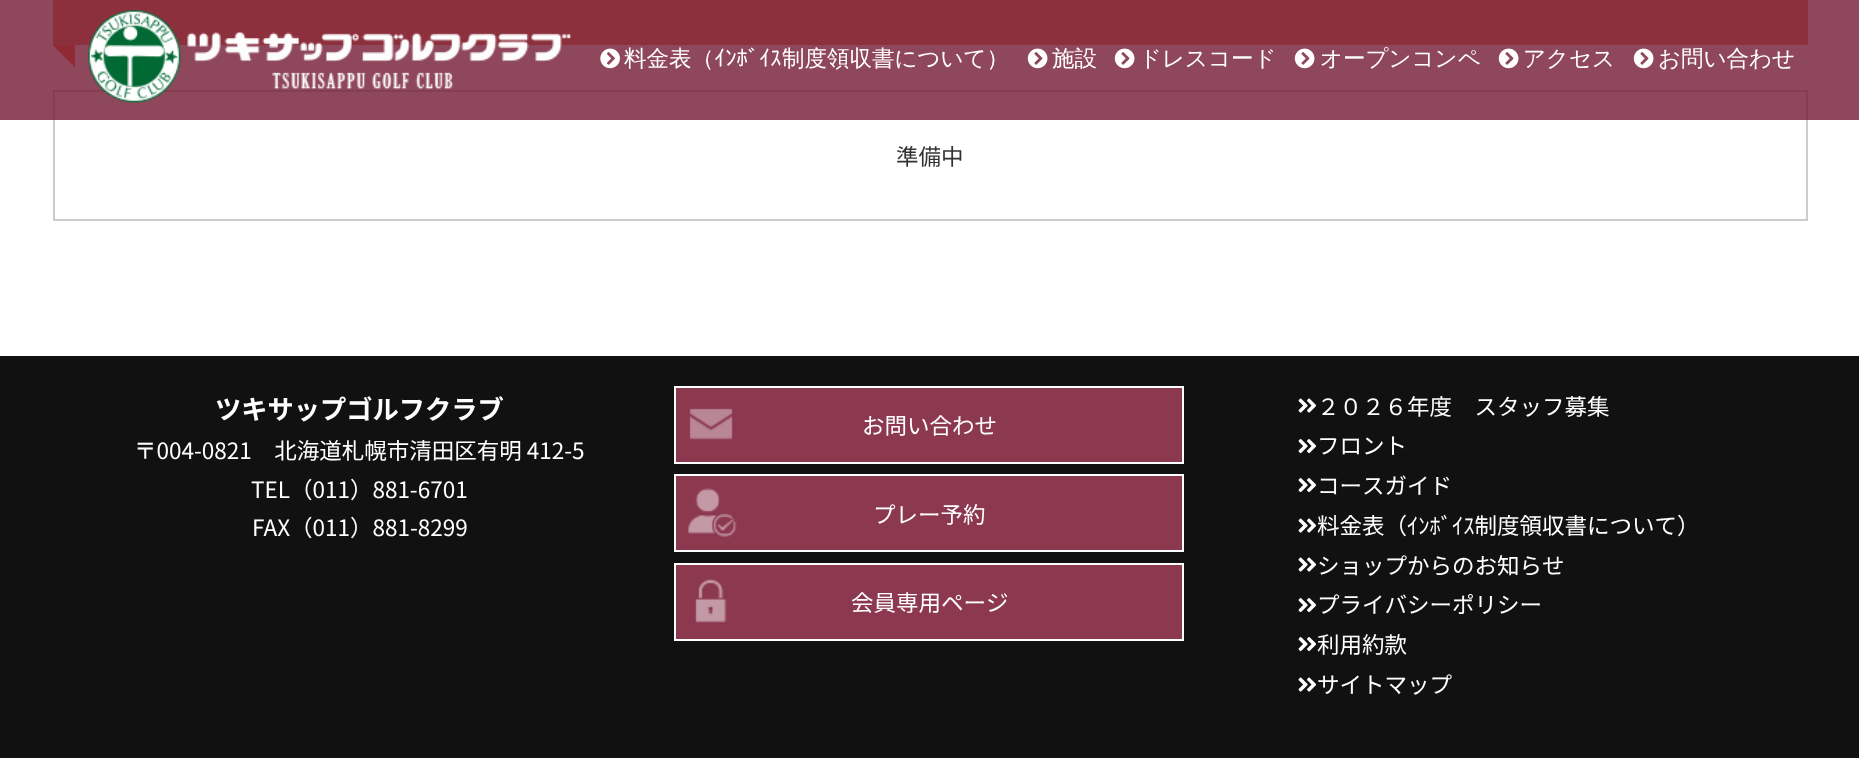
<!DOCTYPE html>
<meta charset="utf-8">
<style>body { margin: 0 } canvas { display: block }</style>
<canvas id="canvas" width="1859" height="758"></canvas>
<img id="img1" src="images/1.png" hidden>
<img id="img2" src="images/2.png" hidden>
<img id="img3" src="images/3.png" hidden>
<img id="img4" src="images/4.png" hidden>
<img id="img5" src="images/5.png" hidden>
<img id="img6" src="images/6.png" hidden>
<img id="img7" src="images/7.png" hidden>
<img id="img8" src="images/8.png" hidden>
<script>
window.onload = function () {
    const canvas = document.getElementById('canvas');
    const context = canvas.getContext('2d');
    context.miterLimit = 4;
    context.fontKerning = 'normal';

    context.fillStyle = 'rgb(255, 255, 255)';
    context.fillRect(0, 0, 1859, 758);
    context.fillStyle = 'rgb(241, 139, 107)';
    context.fillRect(53, 0, 1755, 45);
    context.fillStyle = 'rgb(255, 112, 67)';
    context.beginPath();
    context.moveTo(75, 45);
    context.lineTo(75, 67.5);
    context.lineTo(52.5, 45);
    context.closePath();
    context.fill();
    context.strokeStyle = 'rgb(204, 204, 204)';
    context.lineWidth = 2;
    context.strokeRect(54, 91, 1753, 129);
    context.fillStyle = 'rgba(115, 25, 50, 0.8)';
    context.fillRect(0, 0, 1859, 120);
    context.drawImage(document.getElementById('img1'), 88, 10, 484, 93);
    context.drawImage(document.getElementById('img2'), 600, 48, 20, 21);
    context.drawImage(document.getElementById('img3'), 1027, 48, 21, 21);
    context.drawImage(document.getElementById('img3'), 1114, 48, 21, 21);
    context.drawImage(document.getElementById('img3'), 1294, 48, 21, 21);
    context.drawImage(document.getElementById('img3'), 1498, 48, 21, 21);
    context.drawImage(document.getElementById('img3'), 1633, 48, 21, 21);
    context.fillStyle = 'rgb(17, 17, 17)';
    context.fillRect(0, 356, 1859, 402);
    context.fillStyle = 'rgb(140, 57, 80)';
    context.beginPath();
    context.rect(675, 387, 508, 76);
    context.fill();
    context.strokeStyle = 'rgb(255, 255, 255)';
    context.stroke();
    context.drawImage(document.getElementById('img4'), 689, 408, 44, 32);
    context.beginPath();
    context.rect(675, 475, 508, 76);
    context.fill();
    context.stroke();
    context.drawImage(document.getElementById('img5'), 688, 488, 49, 49);
    context.beginPath();
    context.rect(675, 564, 508, 76);
    context.fill();
    context.stroke();
    context.drawImage(document.getElementById('img6'), 695, 579, 32, 44);
    context.drawImage(document.getElementById('img7'), 1298, 398, 19, 15);
    context.drawImage(document.getElementById('img8'), 1298, 439, 19, 15);
    context.drawImage(document.getElementById('img8'), 1298, 478, 19, 15);
    context.drawImage(document.getElementById('img7'), 1298, 518, 19, 15);
    context.drawImage(document.getElementById('img7'), 1298, 557, 19, 15);
    context.drawImage(document.getElementById('img8'), 1298, 598, 19, 15);
    context.drawImage(document.getElementById('img8'), 1298, 637, 19, 15);
    context.drawImage(document.getElementById('img7'), 1298, 677, 19, 15);
    context.font = '500 22.5px WenQuanYi Zen Hei';
    context.fillStyle = 'rgb(255, 255, 255)';
    context.fillText('料金表（', 624, 66);
    context.font = '22.5px IPAPGothic';
    context.fillText('ｲﾝﾎﾞｲｽ', 714, 66);
    context.font = '500 22.5px WenQuanYi Zen Hei';
    context.fillText('制度領収書について）', 782, 66);
    context.fillText('施設', 1052, 66);
    context.fillText('ドレスコード', 1139, 66);
    context.fillText('オープンコンペ', 1320, 66);
    context.fillText('アクセス', 1523, 66);
    context.fillText('お問い合わせ', 1658, 66);
    context.font = '22.5px Noto Sans JP';
    context.fillStyle = 'rgb(51, 51, 51)';
    context.fillText('準備中', 896, 165);
    context.font = 'bold 26.25px Noto Sans JP';
    context.fillStyle = 'rgb(255, 255, 255)';
    context.fillText('ツキサップゴルフクラブ', 215, 419);
    context.font = '22.5px Noto Sans JP';
    context.fillText('〒004-0821　北海道札幌市清田区有明 412-5', 134, 459);
    context.fillText('TEL（011）881-6701', 251, 498);
    context.fillText('FAX（011）881-8299', 252, 536);
    context.fillText('お問い合わせ', 862, 434);
    context.fillText('プレー予約', 873, 523);
    context.fillText('会員専用ページ', 851, 611);
    context.fillText('２０２６年度　スタッフ募集', 1317, 415);
    context.fillText('フロント', 1317, 454);
    context.fillText('コースガイド', 1317, 494);
    context.fillText('料金表（ｲﾝﾎﾞｲｽ制度領収書について）', 1317, 534);
    context.fillText('ショップからのお知らせ', 1317, 574);
    context.fillText('プライバシーポリシー', 1317, 613);
    context.fillText('利用約款', 1317, 653);
    context.fillText('サイトマップ', 1317, 693);
};
</script>
